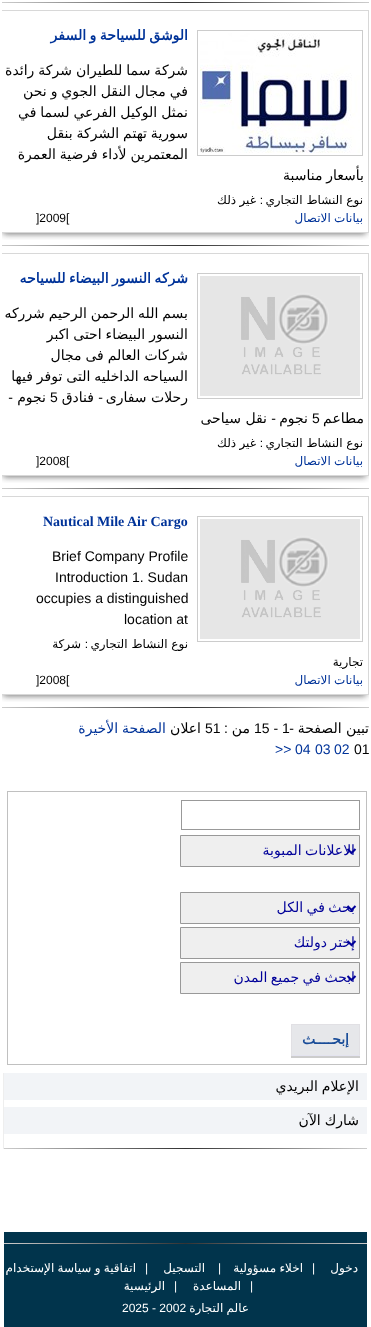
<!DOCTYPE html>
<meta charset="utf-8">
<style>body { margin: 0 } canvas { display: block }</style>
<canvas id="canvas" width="371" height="1327"></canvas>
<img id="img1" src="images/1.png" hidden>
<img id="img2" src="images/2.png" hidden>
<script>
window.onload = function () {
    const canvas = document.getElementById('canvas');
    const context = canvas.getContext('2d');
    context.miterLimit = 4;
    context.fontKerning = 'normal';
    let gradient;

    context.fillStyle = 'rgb(255, 255, 255)';
    context.fillRect(0, 0, 371, 1327);
    gradient = context.createLinearGradient(2, 2.5, 369, 2.5);
    gradient.addColorStop(0, 'rgb(204, 204, 204)');
    gradient.addColorStop(0.5, 'rgb(51, 51, 51)');
    gradient.addColorStop(1, 'rgb(204, 204, 204)');
    context.fillStyle = gradient;
    context.fillRect(2, 2, 367, 1);
    context.save();
    context.beginPath();
    context.rect(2, 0, 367, 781);
    context.clip();
    context.beginPath();
    context.rect(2, 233, 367, 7);
    context.clip();
    context.fillStyle = 'rgb(119, 119, 119)';
    context.filter = 'blur(3px)';
    context.beginPath();
    context.rect(3, 17, 363, 217);
    context.fill();
    context.filter = 'none';
    context.restore();
    context.save();
    context.beginPath();
    context.rect(2, 0, 367, 781);
    context.clip();
    context.strokeStyle = 'rgb(216, 216, 216)';
    context.strokeRect(0.5, 10.5, 368, 222);
    context.restore();
    context.strokeStyle = 'rgb(204, 204, 204)';
    context.strokeRect(197.5, 30.5, 165, 125);
    context.drawImage(document.getElementById('img1'), 200, 33, 160, 120);
    gradient = context.createLinearGradient(2, 246, 369, 246);
    gradient.addColorStop(0, 'rgb(204, 204, 204)');
    gradient.addColorStop(0.5, 'rgb(51, 51, 51)');
    gradient.addColorStop(1, 'rgb(204, 204, 204)');
    context.fillStyle = gradient;
    context.fillRect(2, 245, 367, 1);
    context.save();
    context.beginPath();
    context.rect(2, 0, 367, 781);
    context.clip();
    context.beginPath();
    context.rect(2, 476, 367, 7);
    context.clip();
    context.fillStyle = 'rgb(119, 119, 119)';
    context.filter = 'blur(3px)';
    context.beginPath();
    context.rect(3, 260, 363, 217);
    context.fill();
    context.filter = 'none';
    context.restore();
    context.save();
    context.beginPath();
    context.rect(2, 0, 367, 781);
    context.clip();
    context.strokeStyle = 'rgb(216, 216, 216)';
    context.strokeRect(0.5, 253.5, 368, 222);
    context.restore();
    context.strokeRect(197.5, 273.5, 165, 125);
    context.drawImage(document.getElementById('img2'), 200, 276, 160, 120);
    gradient = context.createLinearGradient(2, 489, 369, 489);
    gradient.addColorStop(0, 'rgb(204, 204, 204)');
    gradient.addColorStop(0.5, 'rgb(51, 51, 51)');
    gradient.addColorStop(1, 'rgb(204, 204, 204)');
    context.fillStyle = gradient;
    context.fillRect(2, 488, 367, 1);
    context.save();
    context.beginPath();
    context.rect(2, 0, 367, 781);
    context.clip();
    context.beginPath();
    context.rect(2, 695, 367, 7);
    context.clip();
    context.fillStyle = 'rgb(119, 119, 119)';
    context.filter = 'blur(3px)';
    context.beginPath();
    context.rect(3, 503, 363, 193);
    context.fill();
    context.filter = 'none';
    context.restore();
    context.save();
    context.beginPath();
    context.rect(2, 0, 367, 781);
    context.clip();
    context.strokeStyle = 'rgb(216, 216, 216)';
    context.strokeRect(0.5, 496.5, 368, 198);
    context.restore();
    context.strokeRect(197.5, 516.5, 165, 125);
    context.drawImage(document.getElementById('img2'), 200, 519, 160, 120);
    gradient = context.createLinearGradient(2, 708, 369, 708);
    gradient.addColorStop(0, 'rgb(204, 204, 204)');
    gradient.addColorStop(0.5, 'rgb(51, 51, 51)');
    gradient.addColorStop(1, 'rgb(204, 204, 204)');
    context.fillStyle = gradient;
    context.fillRect(2, 707, 367, 1);
    context.strokeStyle = 'rgb(192, 192, 192)';
    context.strokeRect(7.5, 791.5, 359, 273);
    context.strokeStyle = 'rgb(153, 153, 153)';
    context.strokeRect(181.5, 800.5, 178, 29);
    context.fillStyle = 'rgb(239, 239, 239)';
    context.beginPath();
    context.rect(180.5, 835.5, 179, 31);
    context.fill();
    context.stroke();
    context.beginPath();
    context.moveTo(347.5, 849);
    context.lineTo(351.5, 853);
    context.lineTo(355.5, 849);
    context.strokeStyle = 'rgb(0, 0, 153)';
    context.lineWidth = 2;
    context.stroke();
    context.beginPath();
    context.rect(180.5, 892.5, 179, 31);
    context.fill();
    context.strokeStyle = 'rgb(153, 153, 153)';
    context.lineWidth = 1;
    context.stroke();
    context.beginPath();
    context.moveTo(347.5, 906);
    context.lineTo(351.5, 910);
    context.lineTo(355.5, 906);
    context.strokeStyle = 'rgb(0, 0, 153)';
    context.lineWidth = 2;
    context.stroke();
    context.beginPath();
    context.rect(180.5, 927.5, 179, 31);
    context.fill();
    context.strokeStyle = 'rgb(153, 153, 153)';
    context.lineWidth = 1;
    context.stroke();
    context.beginPath();
    context.moveTo(347.5, 941);
    context.lineTo(351.5, 945);
    context.lineTo(355.5, 941);
    context.strokeStyle = 'rgb(0, 0, 153)';
    context.lineWidth = 2;
    context.stroke();
    context.beginPath();
    context.rect(180.5, 962.5, 179, 31);
    context.fill();
    context.strokeStyle = 'rgb(153, 153, 153)';
    context.lineWidth = 1;
    context.stroke();
    context.beginPath();
    context.moveTo(347.5, 976);
    context.lineTo(351.5, 980);
    context.lineTo(355.5, 976);
    context.strokeStyle = 'rgb(0, 0, 153)';
    context.lineWidth = 2;
    context.stroke();
    context.fillStyle = 'rgb(204, 204, 204)';
    context.fillRect(291, 1056, 69, 2);
    context.fillStyle = 'rgb(230, 231, 234)';
    context.fillRect(292, 1025, 67, 30);
    context.fillStyle = 'rgb(225, 224, 228)';
    context.fillRect(291, 1024, 69, 1);
    context.fillRect(359, 1024, 1, 32);
    context.fillStyle = 'rgb(227, 227, 239)';
    context.fillRect(291, 1055, 69, 1);
    context.fillStyle = 'rgb(225, 224, 228)';
    context.fillRect(291, 1024, 1, 32);
    context.fillStyle = 'rgb(238, 238, 238)';
    context.fillRect(3, 1073, 1, 76);
    context.fillStyle = 'rgb(242, 244, 247)';
    context.fillRect(4, 1073, 363, 27);
    context.fillRect(4, 1107, 363, 27);
    gradient = context.createLinearGradient(4, 1149, 367, 1149);
    gradient.addColorStop(0, 'rgb(204, 204, 204)');
    gradient.addColorStop(0.5, 'rgb(51, 51, 51)');
    gradient.addColorStop(1, 'rgb(204, 204, 204)');
    context.fillStyle = gradient;
    context.fillRect(4, 1148, 363, 1);
    context.fillStyle = 'rgb(1, 52, 76)';
    context.fillRect(4, 1232, 363, 95);
    gradient = context.createLinearGradient(4, 1244, 367, 1244);
    gradient.addColorStop(0, 'rgb(204, 204, 204)');
    gradient.addColorStop(0.5, 'rgb(51, 51, 51)');
    gradient.addColorStop(1, 'rgb(204, 204, 204)');
    context.fillStyle = gradient;
    context.fillRect(4, 1243, 363, 1);
    context.wordSpacing = '-1px';
    context.direction = 'rtl';
    context.font = 'bold 14px DejaVu Sans';
    context.fillStyle = 'rgb(0, 51, 153)';
    context.fillText('الوشق للسياحة و السفر', 188, 40);
    context.wordSpacing = '-0.5px';
    context.font = '14px DejaVu Sans';
    context.fillStyle = 'rgb(0, 0, 0)';
    context.fillText('شركة سما للطيران شركة رائدة', 188, 75);
    context.fillText('في مجال النقل الجوي و نحن', 188, 96);
    context.fillText('نمثل الوكيل الفرعي لسما في', 188, 117);
    context.wordSpacing = '0px';
    context.fillText('سورية', 188, 138);
    context.wordSpacing = '-0.5px';
    context.fillText('تهتم الشركة بنقل', 147, 138);
    context.fillText('المعتمرين لأداء فرضية العمرة', 188, 159);
    context.fillText('بأسعار مناسبة', 364, 180);
    context.wordSpacing = '0px';
    context.font = '12px DejaVu Sans';
    context.fillText('نوع النشاط التجاري', 363, 204);
    context.font = '12px Liberation Sans';
    context.fillText(':', 263, 204);
    context.wordSpacing = '-0.5px';
    context.font = '12px DejaVu Sans';
    context.fillText('غير ذلك', 256, 204);
    context.fillStyle = 'rgb(0, 51, 153)';
    context.fillText('بيانات الاتصال', 363, 222);
    context.wordSpacing = '0px';
    context.direction = 'ltr';
    context.font = '12px Liberation Sans';
    context.fillStyle = 'rgb(0, 0, 0)';
    context.fillText(']2009[', 36, 222);
    context.wordSpacing = '-1px';
    context.direction = 'rtl';
    context.font = 'bold 14px DejaVu Sans';
    context.fillStyle = 'rgb(0, 51, 153)';
    context.fillText('شركه النسور البيضاء للسياحه', 188, 283);
    context.wordSpacing = '-0.5px';
    context.font = '14px DejaVu Sans';
    context.fillStyle = 'rgb(0, 0, 0)';
    context.fillText('بسم الله الرحمن الرحيم شرركه', 188, 318);
    context.fillText('النسور البيضاء احتى اكبر', 188, 339);
    context.fillText('شركات العالم فى مجال', 188, 360);
    context.fillText('السياحه الداخليه التى توفر فيها', 188, 381);
    context.wordSpacing = '0px';
    context.fillText('رحلات سفارى', 188, 402);
    context.font = '14px Liberation Sans';
    context.fillText('-', 103, 402);
    context.font = '14px DejaVu Sans';
    context.fillText('فنادق', 94, 402);
    context.direction = 'ltr';
    context.font = '14px Liberation Sans';
    context.fillText('5', 50, 402);
    context.direction = 'rtl';
    context.font = '14px DejaVu Sans';
    context.fillText('نجوم', 46, 402);
    context.font = '14px Liberation Sans';
    context.fillText('-', 13, 402);
    context.font = '14px DejaVu Sans';
    context.fillText('مطاعم', 364, 423);
    context.direction = 'ltr';
    context.font = '14px Liberation Sans';
    context.fillText('5', 312, 423);
    context.direction = 'rtl';
    context.font = '14px DejaVu Sans';
    context.fillText('نجوم', 308, 423);
    context.font = '14px Liberation Sans';
    context.fillText('-', 276, 423);
    context.font = '14px DejaVu Sans';
    context.fillText('نقل سياحى', 267, 423);
    context.font = '12px DejaVu Sans';
    context.fillText('نوع النشاط التجاري', 363, 447);
    context.font = '12px Liberation Sans';
    context.fillText(':', 263, 447);
    context.wordSpacing = '-0.5px';
    context.font = '12px DejaVu Sans';
    context.fillText('غير ذلك', 256, 447);
    context.fillStyle = 'rgb(0, 51, 153)';
    context.fillText('بيانات الاتصال', 363, 465);
    context.wordSpacing = '0px';
    context.direction = 'ltr';
    context.font = '12px Liberation Sans';
    context.fillStyle = 'rgb(0, 0, 0)';
    context.fillText(']2008[', 36, 465);
    context.font = 'bold 14px Liberation Serif';
    context.fillStyle = 'rgb(0, 51, 153)';
    context.fillText('Nautical Mile Air Cargo', 43, 526);
    context.font = '14px Liberation Sans';
    context.fillStyle = 'rgb(0, 0, 0)';
    context.fillText('Brief Company Profile', 52, 561);
    context.fillText('Introduction 1. Sudan', 55, 582);
    context.fillText('occupies a distinguished', 36, 603);
    context.fillText('location at', 124, 624);
    context.direction = 'rtl';
    context.font = '12px DejaVu Sans';
    context.fillText('نوع النشاط التجاري', 188, 648);
    context.font = '12px Liberation Sans';
    context.fillText(':', 88, 648);
    context.font = '12px DejaVu Sans';
    context.fillText('شركة', 81, 648);
    context.fillText('تجارية', 363, 666);
    context.wordSpacing = '-0.5px';
    context.fillStyle = 'rgb(0, 51, 153)';
    context.fillText('بيانات الاتصال', 363, 684);
    context.wordSpacing = '0px';
    context.direction = 'ltr';
    context.font = '12px Liberation Sans';
    context.fillStyle = 'rgb(0, 0, 0)';
    context.fillText(']2008[', 36, 684);
    context.direction = 'rtl';
    context.font = '14px DejaVu Sans';
    context.fillText('تبين الصفحة', 369, 733);
    context.font = '14px Liberation Sans';
    context.fillText('-', 294, 733);
    context.direction = 'ltr';
    context.fillText('15 - 1', 254, 733);
    context.direction = 'rtl';
    context.font = '14px DejaVu Sans';
    context.fillText('من', 250, 733);
    context.font = '14px Liberation Sans';
    context.fillText(':', 228, 733);
    context.direction = 'ltr';
    context.fillText('51', 205, 733);
    context.direction = 'rtl';
    context.font = '14px DejaVu Sans';
    context.fillText('اعلان', 201, 733);
    context.wordSpacing = '-0.5px';
    context.fillStyle = 'rgb(0, 51, 153)';
    context.fillText('الصفحة الأخيرة', 166, 733);
    context.wordSpacing = '0px';
    context.direction = 'ltr';
    context.font = '14px Liberation Sans';
    context.fillStyle = 'rgb(0, 0, 0)';
    context.fillText('01', 354, 754);
    context.fillStyle = 'rgb(0, 51, 153)';
    context.fillText('02', 334, 754);
    context.fillText('03', 315, 754);
    context.fillText('04', 295, 754);
    context.fillText('>>', 275, 754);
    context.wordSpacing = '-1px';
    context.direction = 'rtl';
    context.font = '14px DejaVu Sans';
    context.fillStyle = 'rgb(0, 0, 153)';
    context.fillText('الاعلانات المبوبة', 355, 855);
    context.save();
    context.beginPath();
    context.rect(197, 899, 158, 17);
    context.clip();
    context.fillText('بحث في الكل', 355, 912);
    context.restore();
    context.save();
    context.beginPath();
    context.rect(197, 934, 158, 17);
    context.clip();
    context.fillText('إختر دولتك', 355, 947);
    context.restore();
    context.save();
    context.beginPath();
    context.rect(197, 969, 158, 17);
    context.clip();
    context.fillText('ابحث في جميع المدن', 355, 982);
    context.restore();
    context.wordSpacing = '0px';
    context.font = 'bold 14px DejaVu Sans';
    context.fillStyle = 'rgb(25, 76, 152)';
    context.fillText('إبحــــث', 349, 1044);
    context.wordSpacing = '-0.5px';
    context.font = '14px DejaVu Sans';
    context.fillStyle = 'rgb(0, 0, 0)';
    context.fillText('الإعلام البريدي', 359, 1091);
    context.fillText('شارك الآن', 359, 1125);
    context.wordSpacing = '0px';
    context.font = '12px DejaVu Sans';
    context.fillStyle = 'rgb(255, 255, 255)';
    context.fillText('دخول', 358, 1272);
    context.direction = 'ltr';
    context.font = '12px Liberation Sans';
    context.fillText('|', 312, 1272);
    context.wordSpacing = '-0.5px';
    context.direction = 'rtl';
    context.font = '12px DejaVu Sans';
    context.fillText('اخلاء مسؤولية', 303, 1272);
    context.wordSpacing = '0px';
    context.direction = 'ltr';
    context.font = '12px Liberation Sans';
    context.fillText('|', 218, 1272);
    context.direction = 'rtl';
    context.font = '12px DejaVu Sans';
    context.fillText('التسجيل', 205, 1272);
    context.direction = 'ltr';
    context.font = '12px Liberation Sans';
    context.fillText('|', 145, 1272);
    context.wordSpacing = '-0.5px';
    context.direction = 'rtl';
    context.font = '12px DejaVu Sans';
    context.fillText('اتفاقية و سياسة الإستخدام', 136, 1272);
    context.wordSpacing = '0px';
    context.direction = 'ltr';
    context.font = '12px Liberation Sans';
    context.fillText('|', 250, 1290);
    context.direction = 'rtl';
    context.font = '12px DejaVu Sans';
    context.fillText('المساعدة', 241, 1290);
    context.direction = 'ltr';
    context.font = '12px Liberation Sans';
    context.fillText('|', 174, 1290);
    context.direction = 'rtl';
    context.font = '12px DejaVu Sans';
    context.fillText('الرئيسية', 165, 1290);
    context.wordSpacing = '-0.5px';
    context.fillText('عالم التجارة', 249, 1312);
    context.wordSpacing = '0px';
    context.direction = 'ltr';
    context.font = '12px Liberation Sans';
    context.fillText('2025 - 2002', 122, 1312);
};
</script>
